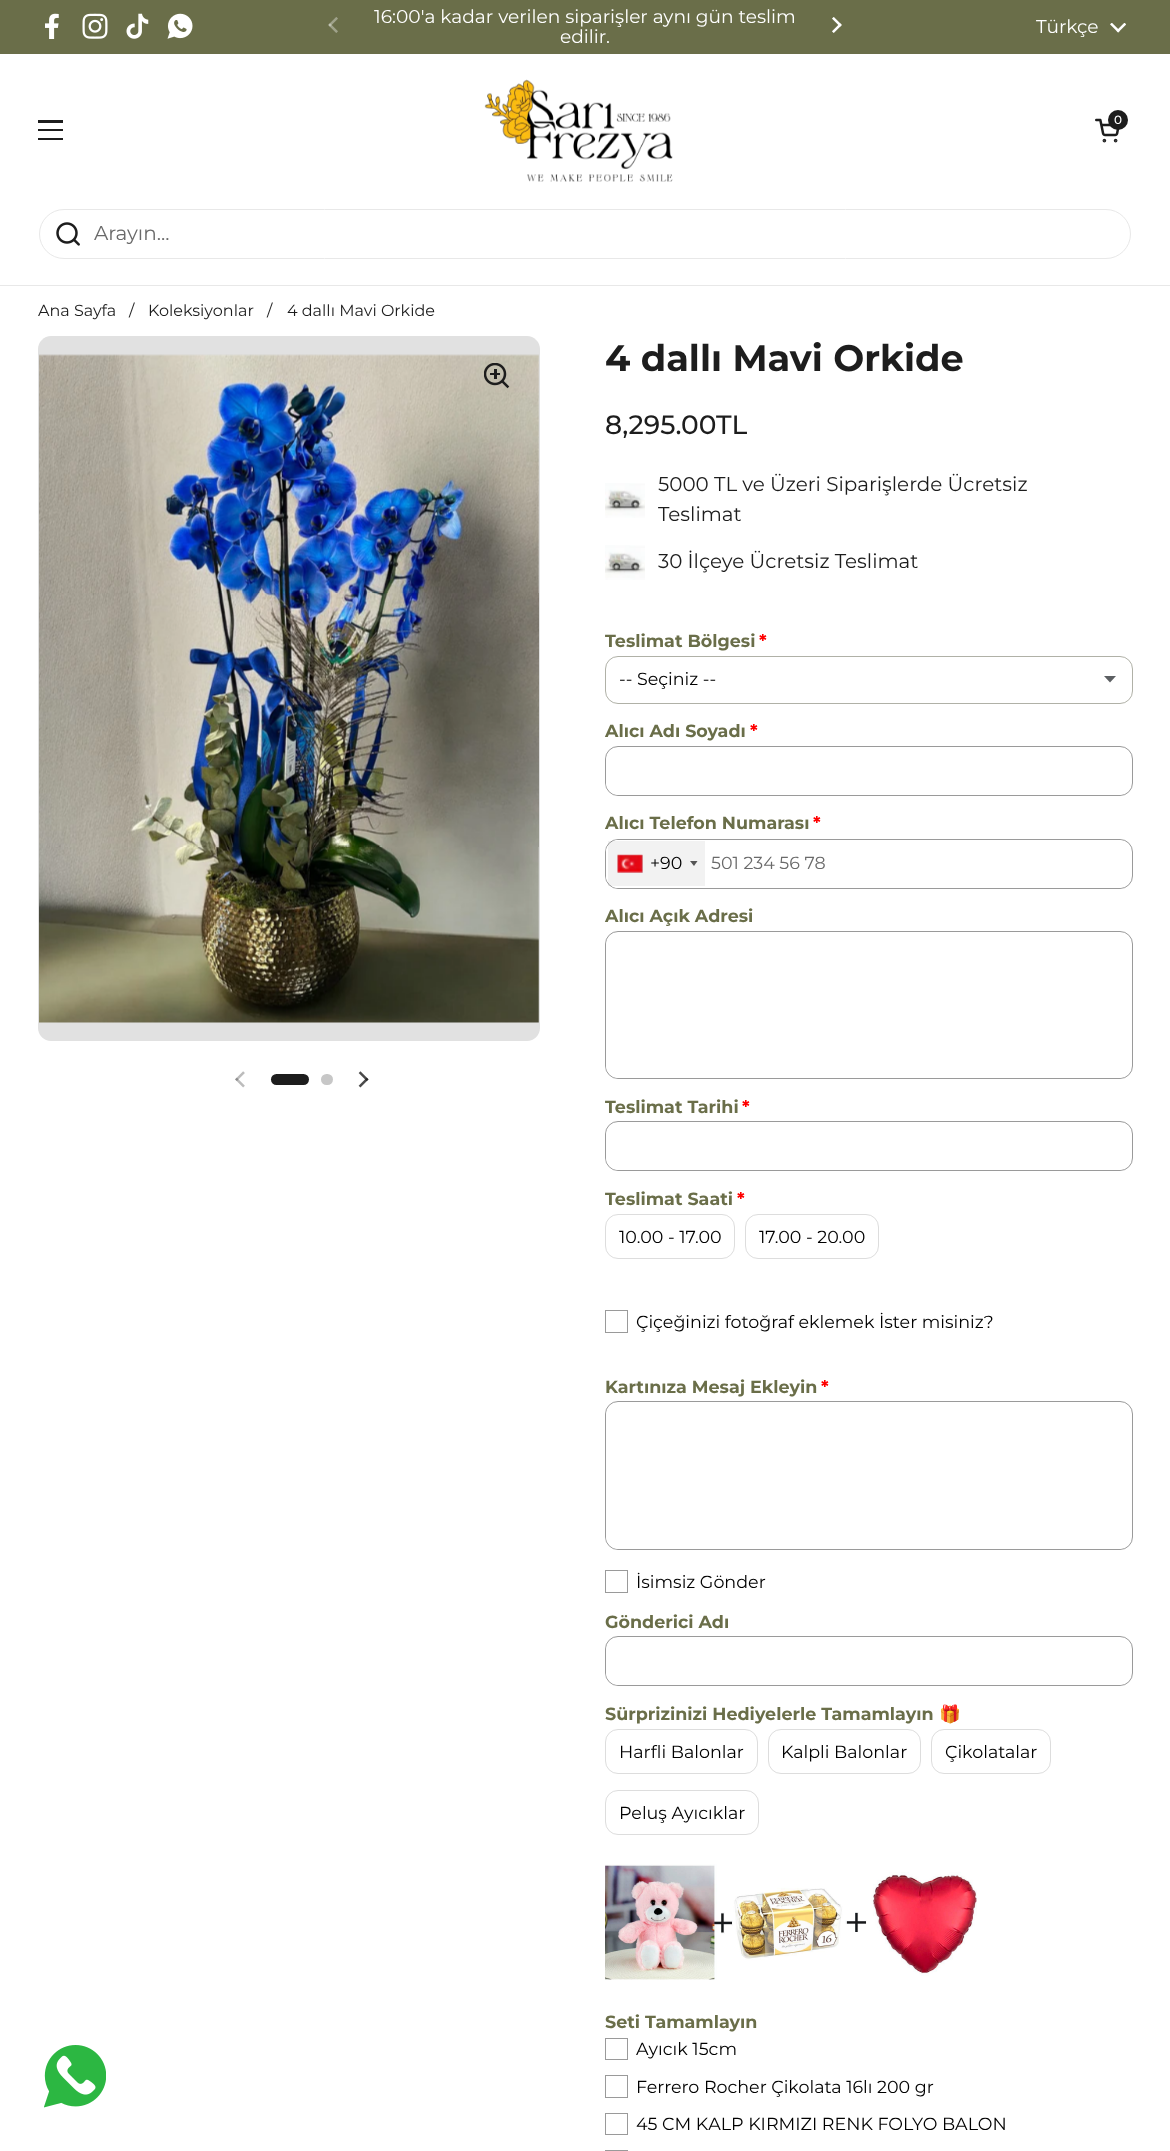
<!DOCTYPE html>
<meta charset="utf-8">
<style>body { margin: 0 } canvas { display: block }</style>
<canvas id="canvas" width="1170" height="2151"></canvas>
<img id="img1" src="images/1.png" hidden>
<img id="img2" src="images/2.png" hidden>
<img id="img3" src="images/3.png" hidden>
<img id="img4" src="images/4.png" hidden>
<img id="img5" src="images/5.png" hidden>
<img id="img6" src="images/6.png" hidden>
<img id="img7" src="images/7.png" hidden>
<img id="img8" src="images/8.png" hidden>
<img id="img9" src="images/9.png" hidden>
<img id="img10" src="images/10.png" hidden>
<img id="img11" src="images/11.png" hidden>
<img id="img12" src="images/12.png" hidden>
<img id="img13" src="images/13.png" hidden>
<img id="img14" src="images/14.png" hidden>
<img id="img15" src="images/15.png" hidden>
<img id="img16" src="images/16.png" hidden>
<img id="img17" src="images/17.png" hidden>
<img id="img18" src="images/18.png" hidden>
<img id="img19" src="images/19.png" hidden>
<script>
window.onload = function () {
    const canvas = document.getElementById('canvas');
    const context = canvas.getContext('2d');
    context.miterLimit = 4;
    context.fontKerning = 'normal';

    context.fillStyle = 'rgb(255, 255, 255)';
    context.fillRect(0, 0, 1170, 2151);
    context.fillStyle = 'rgb(106, 110, 73)';
    context.fillRect(0, 0, 1170, 54);
    context.drawImage(document.getElementById('img1'), 45, 13, 14, 26);
    context.drawImage(document.getElementById('img2'), 82, 13, 26, 26);
    context.drawImage(document.getElementById('img3'), 126, 13, 23, 26);
    context.drawImage(document.getElementById('img4'), 167, 13, 26, 26);
    context.drawImage(document.getElementById('img5'), 328, 17, 10, 16);
    context.drawImage(document.getElementById('img6'), 832, 17, 10, 16);
    context.drawImage(document.getElementById('img7'), 1110, 23, 16, 10);
    context.fillStyle = 'rgb(29, 29, 29)';
    context.fillRect(38, 120, 25, 3);
    context.fillRect(38, 129, 25, 2);
    context.fillRect(38, 138, 25, 2);
    context.drawImage(document.getElementById('img8'), 484, 79, 189, 103);
    context.drawImage(document.getElementById('img9'), 1095, 118, 25, 25);
    context.beginPath();
    context.arc(1118, 120, 10, 0, 2 * Math.PI);
    context.fill();
    context.fillStyle = 'rgb(232, 232, 232)';
    context.fillRect(0, 285, 1170, 1);
    context.beginPath();
    context.roundRect(39.5, 209.5, 1091, 49, 24.5);
    context.strokeStyle = 'rgb(232, 232, 232)';
    context.stroke();
    context.drawImage(document.getElementById('img10'), 56, 222, 24, 24);
    context.fillStyle = 'rgb(225, 225, 225)';
    context.beginPath();
    context.moveTo(51, 336);
    context.lineTo(527, 336);
    context.bezierCurveTo(534, 336, 540, 342, 540, 349);
    context.lineTo(540, 1028);
    context.bezierCurveTo(540, 1035, 534, 1041, 527, 1041);
    context.lineTo(51, 1041);
    context.bezierCurveTo(44, 1041, 38, 1035, 38, 1028);
    context.lineTo(38, 349);
    context.bezierCurveTo(38, 342, 44, 336, 51, 336);
    context.closePath();
    context.fill();
    context.drawImage(document.getElementById('img11'), 39, 354, 500, 669);
    context.drawImage(document.getElementById('img12'), 484, 363, 26, 26);
    context.drawImage(document.getElementById('img13'), 235, 1071, 10, 17);
    context.fillStyle = 'rgb(29, 29, 29)';
    context.beginPath();
    context.roundRect(271, 1074, 38, 11, 5.5);
    context.fill();
    context.fillStyle = 'rgb(199, 199, 199)';
    context.beginPath();
    context.roundRect(321, 1074, 12, 11, 5.5);
    context.fill();
    context.drawImage(document.getElementById('img14'), 358, 1071, 11, 17);
    context.drawImage(document.getElementById('img15'), 605, 483, 40, 35);
    context.drawImage(document.getElementById('img16'), 605, 545, 40, 35);
    context.beginPath();
    context.roundRect(605.5, 656.5, 527, 47, 12.5);
    context.strokeStyle = 'rgb(176, 177, 167)';
    context.stroke();
    context.fillStyle = 'rgb(92, 95, 98)';
    context.beginPath();
    context.moveTo(1104, 676);
    context.lineTo(1116, 676);
    context.lineTo(1110, 682.5);
    context.closePath();
    context.fill();
    context.beginPath();
    context.roundRect(605.5, 746.5, 527, 49, 12.5);
    context.strokeStyle = 'rgb(154, 154, 154)';
    context.stroke();
    context.fillStyle = 'rgb(255, 255, 255)';
    context.beginPath();
    context.roundRect(606, 748, 525, 47, 13);
    context.fill();
    context.beginPath();
    context.roundRect(605.5, 839.5, 527, 49, 12.5);
    context.stroke();
    context.beginPath();
    context.roundRect(606, 840, 525, 48, 13);
    context.fill();
    context.beginPath();
    context.roundRect(606, 840, 427, 48, 13);
    context.fill();
    context.fillStyle = 'rgba(0, 0, 0, 0.05)';
    context.fillRect(608, 841, 97, 45);
    context.fillStyle = 'rgb(136, 136, 136)';
    context.filter = 'blur(0.5px)';
    context.beginPath();
    context.rect(618, 855, 25, 18);
    context.fill();
    context.filter = 'none';
    context.fillStyle = 'rgb(219, 219, 219)';
    context.fillRect(618, 855, 25, 18);
    context.drawImage(document.getElementById('img17'), 617, 854, 26, 19);
    context.fillStyle = 'rgb(85, 85, 85)';
    context.beginPath();
    context.moveTo(690, 861);
    context.lineTo(697.5, 861);
    context.lineTo(694, 866);
    context.closePath();
    context.fill();
    context.beginPath();
    context.roundRect(605.5, 931.5, 527, 147, 12.5);
    context.stroke();
    context.fillStyle = 'rgb(255, 255, 255)';
    context.beginPath();
    context.roundRect(606, 933, 525, 145, 13);
    context.fill();
    context.beginPath();
    context.roundRect(605.5, 1121.5, 527, 49, 12.5);
    context.stroke();
    context.beginPath();
    context.roundRect(606, 1123, 525, 47, 13);
    context.fill();
    context.beginPath();
    context.roundRect(605.5, 1214.5, 129, 44, 12.5);
    context.strokeStyle = 'rgb(221, 221, 221)';
    context.stroke();
    context.beginPath();
    context.roundRect(745.5, 1214.5, 133, 44, 12.5);
    context.stroke();
    context.strokeStyle = 'rgb(154, 154, 154)';
    context.strokeRect(605.5, 1310.5, 22, 22);
    context.beginPath();
    context.roundRect(605.5, 1401.5, 527, 148, 12.5);
    context.stroke();
    context.beginPath();
    context.roundRect(606, 1403, 525, 146, 13);
    context.fill();
    context.strokeRect(605.5, 1570.5, 22, 22);
    context.beginPath();
    context.roundRect(605.5, 1636.5, 527, 49, 12.5);
    context.stroke();
    context.beginPath();
    context.roundRect(606, 1638, 525, 47, 13);
    context.fill();
    context.beginPath();
    context.roundRect(605.5, 1729.5, 152, 44, 12.5);
    context.strokeStyle = 'rgb(221, 221, 221)';
    context.stroke();
    context.beginPath();
    context.roundRect(768.5, 1729.5, 152, 44, 12.5);
    context.stroke();
    context.beginPath();
    context.roundRect(931.5, 1729.5, 119, 44, 12.5);
    context.stroke();
    context.beginPath();
    context.roundRect(605.5, 1790.5, 153, 44, 12.5);
    context.stroke();
    context.drawImage(document.getElementById('img18'), 605, 1864, 372, 116);
    context.strokeStyle = 'rgb(154, 154, 154)';
    context.strokeRect(605.5, 2038.5, 22, 21);
    context.strokeRect(605.5, 2075.5, 22, 22);
    context.strokeRect(605.5, 2113.5, 22, 21);
    context.strokeRect(605.5, 2150.5, 22, 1);
    context.drawImage(document.getElementById('img19'), 44, 2045, 62, 63);
    context.font = '100 18.6px Montserrat';
    context.fillText('16:00\'a kadar verilen siparişler aynı gün teslim', 374, 23);
    context.fillText('edilir.', 560, 43);
    context.fillText('Türkçe', 1036, 33);
    context.font = '500 12px Montserrat';
    context.fillText('0', 1114, 124);
    context.font = '100 20px Montserrat';
    context.fillStyle = 'rgb(106, 106, 106)';
    context.fillText('Arayın...', 94, 240);
    context.font = '100 16px Montserrat';
    context.fillStyle = 'rgb(29, 29, 29)';
    context.fillText('Ana Sayfa', 38, 316);
    context.fillText('/', 129, 316);
    context.fillText('Koleksiyonlar', 148, 316);
    context.fillText('/', 267, 316);
    context.fillText('4 dallı Mavi Orkide', 287, 316);
    context.font = '100 36.75px "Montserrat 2"';
    context.fillText('4 dallı Mavi Orkide', 605, 371);
    context.font = '500 26.5px Montserrat';
    context.fillText('8,295.00TL', 605, 434);
    context.font = '100 19.9px Montserrat';
    context.fillText('5000 TL ve Üzeri Siparişlerde Ücretsiz', 658, 491);
    context.fillText('Teslimat', 658, 521);
    context.fillText('30 İlçeye Ücretsiz Teslimat', 658, 568);
    context.font = '100 17.5px "Montserrat 2"';
    context.fillStyle = 'rgb(106, 110, 73)';
    context.fillText('Teslimat Bölgesi', 605, 647);
    context.fillStyle = 'rgb(255, 0, 0)';
    context.fillText('*', 759, 647);
    context.font = '100 17.5px Montserrat';
    context.fillStyle = 'rgb(0, 0, 0)';
    context.fillText('-- Seçiniz --', 619, 685);
    context.font = '100 17.5px "Montserrat 2"';
    context.fillStyle = 'rgb(106, 110, 73)';
    context.fillText('Alıcı Adı Soyadı', 605, 737);
    context.fillStyle = 'rgb(255, 0, 0)';
    context.fillText('*', 750, 737);
    context.fillStyle = 'rgb(106, 110, 73)';
    context.fillText('Alıcı Telefon Numarası', 605, 829);
    context.fillStyle = 'rgb(255, 0, 0)';
    context.fillText('*', 813, 829);
    context.font = '100 17.5px Montserrat';
    context.fillStyle = 'rgb(0, 0, 0)';
    context.fillText('+90', 650, 869);
    context.fillStyle = 'rgb(106, 106, 106)';
    context.fillText('501 234 56 78', 711, 869);
    context.font = '100 17.5px "Montserrat 2"';
    context.fillStyle = 'rgb(106, 110, 73)';
    context.fillText('Alıcı Açık Adresi', 605, 922);
    context.fillText('Teslimat Tarihi', 605, 1113);
    context.fillStyle = 'rgb(255, 0, 0)';
    context.fillText('*', 742, 1113);
    context.fillStyle = 'rgb(106, 110, 73)';
    context.fillText('Teslimat Saati', 605, 1205);
    context.fillStyle = 'rgb(255, 0, 0)';
    context.fillText('*', 737, 1205);
    context.font = '100 17.5px Montserrat';
    context.fillStyle = 'rgb(0, 0, 0)';
    context.fillText('10.00 - 17.00', 619, 1243);
    context.fillText('17.00 - 20.00', 759, 1243);
    context.fillText('Çiçeğinizi fotoğraf eklemek İster misiniz?', 636, 1328);
    context.font = '100 17.5px "Montserrat 2"';
    context.fillStyle = 'rgb(106, 110, 73)';
    context.fillText('Kartınıza Mesaj Ekleyin', 605, 1393);
    context.fillStyle = 'rgb(255, 0, 0)';
    context.fillText('*', 821, 1393);
    context.font = '100 17.5px Montserrat';
    context.fillStyle = 'rgb(0, 0, 0)';
    context.fillText('İsimsiz Gönder', 636, 1588);
    context.font = '100 17.5px "Montserrat 2"';
    context.fillStyle = 'rgb(106, 110, 73)';
    context.fillText('Gönderici Adı', 605, 1628);
    context.fillText('Sürprizinizi Hediyelerle Tamamlayın', 605, 1720);
    context.font = 'bold 17.5px Noto Color Emoji';
    context.fillText('🎁', 939, 1720);
    context.font = '100 17.5px Montserrat';
    context.fillStyle = 'rgb(0, 0, 0)';
    context.fillText('Harfli Balonlar', 619, 1758);
    context.fillText('Kalpli Balonlar', 781, 1758);
    context.fillText('Çikolatalar', 945, 1758);
    context.fillText('Peluş Ayıcıklar', 619, 1819);
    context.font = '100 17.5px "Montserrat 2"';
    context.fillStyle = 'rgb(106, 110, 73)';
    context.fillText('Seti Tamamlayın', 605, 2028);
    context.font = '100 17.5px Montserrat';
    context.fillStyle = 'rgb(0, 0, 0)';
    context.fillText('Ayıcık 15cm', 636, 2055);
    context.fillText('Ferrero Rocher Çikolata 16lı 200 gr', 636, 2093);
    context.fillText('45 CM KALP KIRMIZI RENK FOLYO BALON', 636, 2130);
};
</script>
